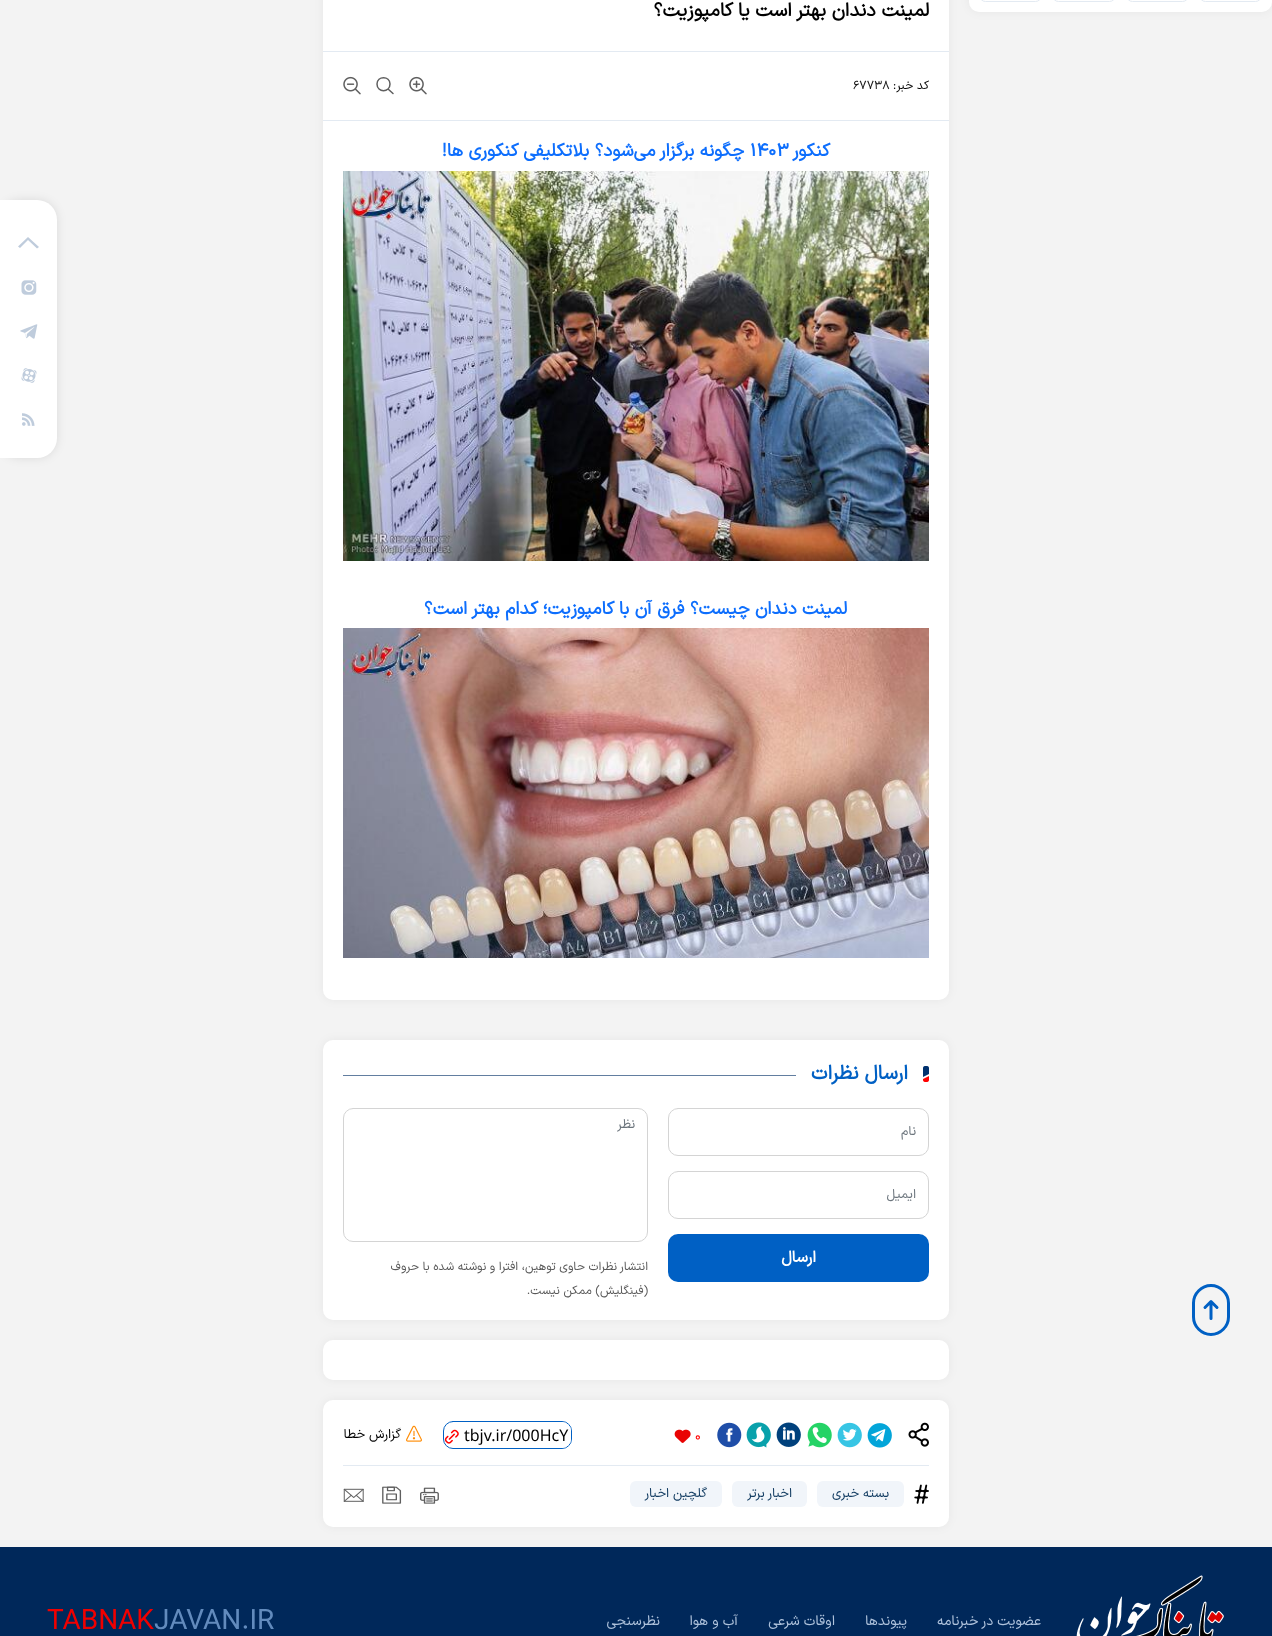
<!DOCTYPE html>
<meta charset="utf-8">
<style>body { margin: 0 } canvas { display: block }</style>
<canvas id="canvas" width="1272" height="1636"></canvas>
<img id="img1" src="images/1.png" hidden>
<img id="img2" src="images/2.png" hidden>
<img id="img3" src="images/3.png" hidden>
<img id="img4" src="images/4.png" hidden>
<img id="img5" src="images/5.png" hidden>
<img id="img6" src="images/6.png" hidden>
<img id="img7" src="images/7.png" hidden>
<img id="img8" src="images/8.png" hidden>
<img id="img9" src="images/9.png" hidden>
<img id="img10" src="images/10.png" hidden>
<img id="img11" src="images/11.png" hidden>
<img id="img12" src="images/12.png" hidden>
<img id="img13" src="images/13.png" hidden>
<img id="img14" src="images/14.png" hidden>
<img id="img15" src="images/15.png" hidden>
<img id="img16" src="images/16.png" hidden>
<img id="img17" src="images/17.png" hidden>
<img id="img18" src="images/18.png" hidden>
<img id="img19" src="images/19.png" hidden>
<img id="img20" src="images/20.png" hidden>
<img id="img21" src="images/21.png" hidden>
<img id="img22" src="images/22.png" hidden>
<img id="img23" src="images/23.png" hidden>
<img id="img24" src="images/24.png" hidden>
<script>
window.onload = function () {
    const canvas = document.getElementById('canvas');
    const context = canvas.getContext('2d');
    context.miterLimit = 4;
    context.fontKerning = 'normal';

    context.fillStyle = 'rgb(243, 243, 243)';
    context.fillRect(0, 0, 1272, 1636);
    context.fillStyle = 'rgba(0, 0, 0, 0.05)';
    context.filter = 'blur(5px)';
    context.beginPath();
    context.roundRect(969, -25, 303, 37, 10);
    context.fill();
    context.filter = 'none';
    context.fillStyle = 'rgb(255, 255, 255)';
    context.beginPath();
    context.roundRect(969, -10, 303, 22, 10);
    context.fill();
    context.beginPath();
    context.roundRect(1199.5, -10.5, 62, 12, 9.5);
    context.strokeStyle = 'rgb(227, 234, 242)';
    context.stroke();
    context.beginPath();
    context.roundRect(1126.5, -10.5, 62, 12, 9.5);
    context.stroke();
    context.beginPath();
    context.roundRect(1052.5, -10.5, 63, 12, 9.5);
    context.stroke();
    context.beginPath();
    context.roundRect(979.5, -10.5, 62, 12, 9.5);
    context.stroke();
    context.fillStyle = 'rgba(0, 0, 0, 0.05)';
    context.filter = 'blur(5px)';
    context.beginPath();
    context.roundRect(323, -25, 626, 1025, 10);
    context.fill();
    context.filter = 'none';
    context.fillStyle = 'rgb(255, 255, 255)';
    context.beginPath();
    context.roundRect(323, -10, 626, 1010, 10);
    context.fill();
    context.fillStyle = 'rgb(227, 234, 242)';
    context.fillRect(323, 51, 626, 1);
    context.fillRect(323, 120, 626, 1);
    context.drawImage(document.getElementById('img1'), 409, 76, 18, 19);
    context.beginPath();
    context.moveTo(393, 93.5);
    context.lineTo(388, 89);
    context.moveTo(390, 84);
    context.bezierCurveTo(390, 93, 377, 93, 377, 84);
    context.bezierCurveTo(377, 75.5, 390, 75.5, 390, 84);
    context.closePath();
    context.strokeStyle = 'rgb(95, 95, 95)';
    context.lineWidth = 1.5;
    context.lineCap = 'round';
    context.lineJoin = 'round';
    context.stroke();
    context.drawImage(document.getElementById('img2'), 343, 76, 18, 19);
    context.drawImage(document.getElementById('img3'), 343, 171, 586, 390);
    context.drawImage(document.getElementById('img4'), 343, 628, 586, 330);
    context.fillStyle = 'rgba(0, 0, 0, 0.05)';
    context.filter = 'blur(5px)';
    context.beginPath();
    context.roundRect(323, 1040, 626, 280, 10);
    context.fill();
    context.filter = 'none';
    context.fillStyle = 'rgb(255, 255, 255)';
    context.beginPath();
    context.roundRect(323, 1040, 626, 280, 10);
    context.fill();
    context.drawImage(document.getElementById('img5'), 923, 1066, 6, 16);
    context.fillStyle = 'rgb(98, 126, 160)';
    context.fillRect(343, 1075, 453, 1);
    context.beginPath();
    context.roundRect(668.5, 1108.5, 260, 47, 9.5);
    context.strokeStyle = 'rgb(212, 212, 212)';
    context.lineWidth = 1;
    context.lineJoin = 'miter';
    context.stroke();
    context.beginPath();
    context.roundRect(668.5, 1171.5, 260, 47, 9.5);
    context.stroke();
    context.fillStyle = 'rgb(0, 96, 196)';
    context.beginPath();
    context.roundRect(668, 1234, 261, 48, 10);
    context.fill();
    context.beginPath();
    context.roundRect(343.5, 1108.5, 304, 133, 9.5);
    context.stroke();
    context.fillStyle = 'rgba(0, 0, 0, 0.05)';
    context.filter = 'blur(5px)';
    context.beginPath();
    context.roundRect(323, 1340, 626, 40, 10);
    context.fill();
    context.filter = 'none';
    context.fillStyle = 'rgb(255, 255, 255)';
    context.beginPath();
    context.roundRect(323, 1340, 626, 40, 10);
    context.fill();
    context.fillStyle = 'rgba(0, 0, 0, 0.05)';
    context.filter = 'blur(5px)';
    context.beginPath();
    context.roundRect(323, 1400, 626, 127, 10);
    context.fill();
    context.filter = 'none';
    context.fillStyle = 'rgb(255, 255, 255)';
    context.beginPath();
    context.roundRect(323, 1400, 626, 127, 10);
    context.fill();
    context.fillStyle = 'rgb(227, 234, 242)';
    context.fillRect(343, 1465, 586, 1);
    context.drawImage(document.getElementById('img6'), 908, 1422, 21, 25);
    context.drawImage(document.getElementById('img7'), 867, 1423, 25, 25);
    context.drawImage(document.getElementById('img8'), 837, 1422, 25, 26);
    context.drawImage(document.getElementById('img9'), 807, 1422, 25, 26);
    context.drawImage(document.getElementById('img10'), 776, 1422, 25, 25);
    context.drawImage(document.getElementById('img11'), 746, 1422, 25, 26);
    context.drawImage(document.getElementById('img12'), 717, 1422, 25, 26);
    context.drawImage(document.getElementById('img13'), 674, 1429, 17, 14);
    context.beginPath();
    context.roundRect(443.5, 1421.5, 128, 27, 9.5);
    context.strokeStyle = 'rgb(0, 96, 196)';
    context.stroke();
    context.fillStyle = 'rgb(255, 255, 255)';
    context.beginPath();
    context.roundRect(463, 1422, 108, 26, [0, 9, 9, 0]);
    context.fill();
    context.drawImage(document.getElementById('img14'), 444, 1429, 15, 15);
    context.drawImage(document.getElementById('img15'), 406, 1425, 16, 17);
    context.drawImage(document.getElementById('img16'), 914, 1484, 15, 20);
    context.fillStyle = 'rgb(241, 245, 250)';
    context.beginPath();
    context.roundRect(817, 1481, 87, 26, 6);
    context.fill();
    context.beginPath();
    context.roundRect(732, 1481, 75, 26, 6);
    context.fill();
    context.beginPath();
    context.roundRect(630, 1481, 92, 26, 6);
    context.fill();
    context.drawImage(document.getElementById('img17'), 420, 1487, 19, 17);
    context.drawImage(document.getElementById('img18'), 382, 1486, 20, 18);
    context.drawImage(document.getElementById('img19'), 343, 1488, 21, 14);
    context.fillStyle = 'rgba(0, 0, 0, 0.1)';
    context.filter = 'blur(5px)';
    context.beginPath();
    context.roundRect(0, 200, 57, 258, 20);
    context.fill();
    context.filter = 'none';
    context.fillStyle = 'rgb(255, 255, 255)';
    context.beginPath();
    context.roundRect(0, 200, 57, 258, [0, 20, 20, 0]);
    context.fill();
    context.fillStyle = 'rgb(191, 204, 220)';
    context.beginPath();
    context.moveTo(28, 240);
    context.lineTo(20, 248);
    context.lineTo(18, 246.5);
    context.lineTo(28, 237);
    context.lineTo(39, 247);
    context.lineTo(37, 248.5);
    context.closePath();
    context.fill();
    context.drawImage(document.getElementById('img20'), 21, 280, 16, 15);
    context.drawImage(document.getElementById('img21'), 20, 324, 18, 15);
    context.drawImage(document.getElementById('img22'), 21, 368, 16, 15);
    context.drawImage(document.getElementById('img23'), 22, 413, 13, 13);
    context.beginPath();
    context.moveTo(1205, 1307.5);
    context.lineTo(1211, 1301.5);
    context.lineTo(1217, 1307.5);
    context.moveTo(1211, 1318.5);
    context.lineTo(1211, 1301.5);
    context.lineWidth = 3;
    context.lineJoin = 'round';
    context.stroke();
    context.beginPath();
    context.moveTo(1211, 1334.5);
    context.bezierCurveTo(1201.5, 1334.5, 1193.5, 1326.5, 1193.5, 1317);
    context.lineTo(1193.5, 1303);
    context.bezierCurveTo(1193.5, 1293.5, 1201.5, 1285.5, 1211, 1285.5);
    context.bezierCurveTo(1220.5, 1285.5, 1228.5, 1293.5, 1228.5, 1303);
    context.lineTo(1228.5, 1317);
    context.bezierCurveTo(1228.5, 1326.5, 1220.5, 1334.5, 1211, 1334.5);
    context.closePath();
    context.lineCap = 'butt';
    context.lineJoin = 'miter';
    context.stroke();
    context.fillStyle = 'rgb(0, 40, 90)';
    context.fillRect(0, 1547, 1272, 89);
    context.drawImage(document.getElementById('img24'), 1076, 1575, 148, 61);
    context.direction = 'rtl';
    context.font = 'bold 19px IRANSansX';
    context.fillStyle = 'rgb(0, 0, 0)';
    context.fillText('لمینت دندان بهتر است یا کامپوزیت؟', 929, 16);
    context.font = '12px IRANSansX';
    context.fillText('کد خبر:', 929, 89);
    context.direction = 'ltr';
    context.fillStyle = 'rgb(24, 24, 24)';
    context.fillText('۶۷۷۳۸', 853, 89);
    context.direction = 'rtl';
    context.font = 'bold 18px IRANSansX';
    context.fillStyle = 'rgb(13, 110, 253)';
    context.fillText('کنکور', 830, 156);
    context.direction = 'ltr';
    context.fillText('۱۴۰۳', 750, 156);
    context.direction = 'rtl';
    context.fillText('چگونه برگزار می‌شود؟ بلاتکلیفی کنکوری ها!', 744, 156);
    context.fillText('لمینت دندان چیست؟ فرق آن با کامپوزیت؛ کدام بهتر است؟', 847, 614);
    context.font = 'bold 20px IRANSansX';
    context.fillStyle = 'rgb(0, 96, 196)';
    context.fillText('ارسال نظرات', 908, 1079);
    context.font = '13px IRANSansX';
    context.fillStyle = 'rgb(108, 117, 125)';
    context.fillText('نام', 916, 1135);
    context.fillText('ایمیل', 916, 1198);
    context.font = 'bold 16px IRANSansX';
    context.fillStyle = 'rgb(255, 255, 255)';
    context.fillText('ارسال', 816, 1262);
    context.font = '13px IRANSansX';
    context.fillStyle = 'rgb(108, 117, 125)';
    context.fillText('نظر', 635, 1128);
    context.font = '12px IRANSansX';
    context.fillStyle = 'rgb(89, 89, 89)';
    context.fillText('انتشار نظرات حاوی توهین، افترا و نوشته شده با حروف', 648, 1270);
    context.fillText('(فینگلیش) ممکن نیست.', 648, 1294);
    context.direction = 'ltr';
    context.font = '13px IRANSansX';
    context.fillStyle = 'rgb(255, 0, 0)';
    context.fillText('۰', 695, 1440);
    context.font = '16px Noto Sans';
    context.fillStyle = 'rgb(0, 0, 0)';
    context.fillText('tbjv.ir/000HcY', 464, 1441);
    context.direction = 'rtl';
    context.font = '13px IRANSansX';
    context.fillText('گزارش خطا', 401, 1438);
    context.fillStyle = 'rgb(17, 59, 97)';
    context.fillText('بسته خبری', 889, 1497);
    context.fillText('اخبار برتر', 792, 1497);
    context.fillText('گلچین اخبار', 707, 1497);
    context.font = '14px IRANSansX';
    context.fillStyle = 'rgb(175, 195, 220)';
    context.fillText('عضویت در خبرنامه', 1041, 1625);
    context.fillText('پیوندها', 907, 1625);
    context.fillText('اوقات شرعی', 835, 1625);
    context.fillText('آب و هوا', 738, 1625);
    context.fillText('نظرسنجی', 660, 1625);
    context.direction = 'ltr';
    context.font = '28px IRANSansX';
    context.fillStyle = 'rgb(98, 139, 189)';
    context.fillText('JAVAN.IR', 154, 1629);
    context.fillStyle = 'rgb(240, 0, 0)';
    context.fillText('TABNAK', 47, 1629);
};
</script>
